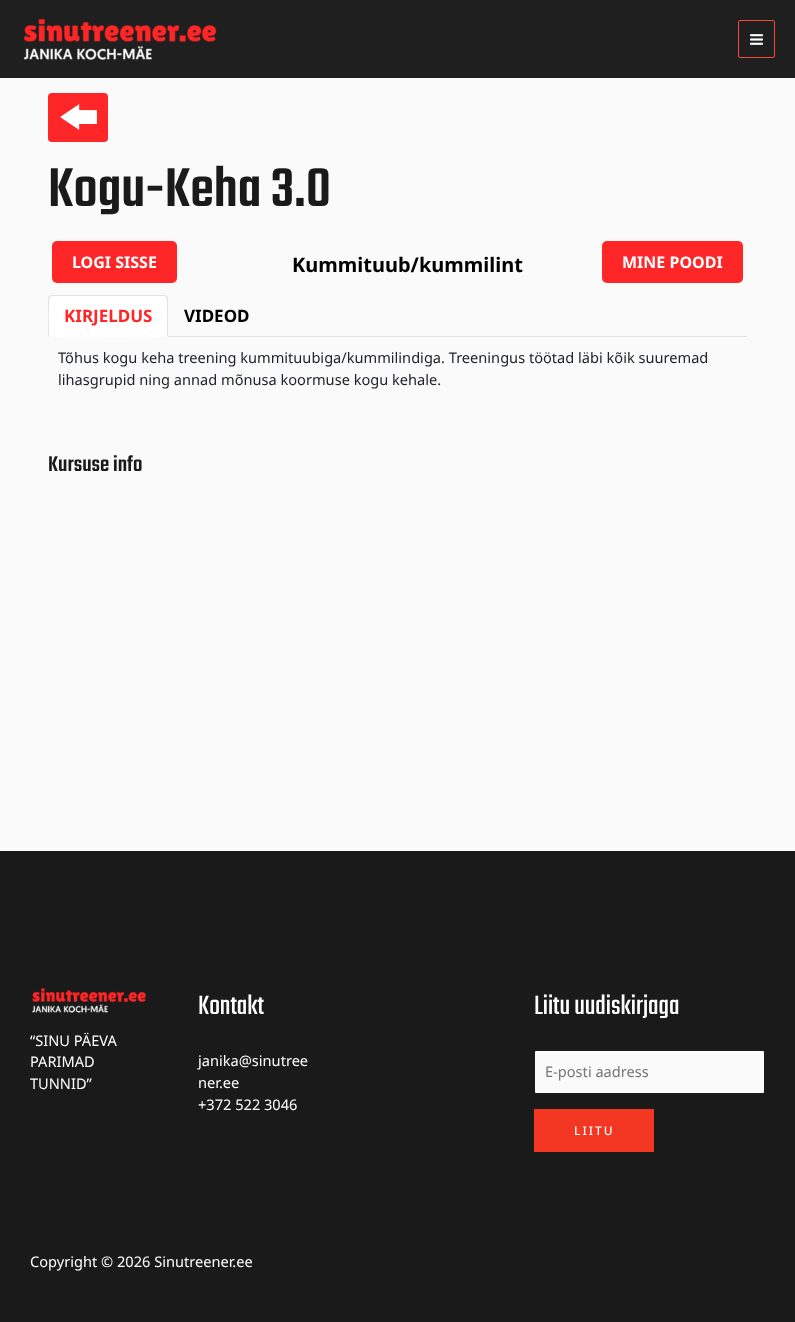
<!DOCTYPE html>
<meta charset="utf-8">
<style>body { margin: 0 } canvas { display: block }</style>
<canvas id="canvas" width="795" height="1322"></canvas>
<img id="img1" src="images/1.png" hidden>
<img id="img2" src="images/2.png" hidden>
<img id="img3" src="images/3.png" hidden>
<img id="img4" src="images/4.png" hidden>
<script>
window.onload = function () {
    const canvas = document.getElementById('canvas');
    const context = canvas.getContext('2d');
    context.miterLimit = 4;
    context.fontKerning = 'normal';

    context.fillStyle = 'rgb(250, 250, 250)';
    context.fillRect(0, 0, 795, 1322);
    context.fillStyle = 'rgb(31, 31, 31)';
    context.fillRect(0, 0, 795, 78);
    context.drawImage(document.getElementById('img1'), 23, 18, 194, 42);
    context.beginPath();
    context.roundRect(738.5, 20.5, 36, 37, 1.5);
    context.strokeStyle = 'rgb(243, 78, 58)';
    context.stroke();
    context.drawImage(document.getElementById('img2'), 750, 34, 13, 11);
    context.fillStyle = 'rgb(255, 38, 39)';
    context.beginPath();
    context.roundRect(48, 93, 60, 49, 4);
    context.fill();
    context.drawImage(document.getElementById('img3'), 60, 104, 37, 26);
    context.beginPath();
    context.roundRect(52, 241, 125, 42, 5);
    context.fill();
    context.beginPath();
    context.roundRect(602, 241, 141, 42, 5);
    context.fill();
    context.fillStyle = 'rgb(222, 226, 230)';
    context.fillRect(168, 336, 579, 1);
    context.fillStyle = 'rgb(255, 255, 255)';
    context.beginPath();
    context.roundRect(48, 295, 120, 42, [4, 4, 0, 0]);
    context.fill();
    context.fillStyle = 'rgb(222, 226, 230)';
    context.beginPath();
    context.moveTo(52, 295);
    context.lineTo(49, 296);
    context.lineTo(50, 297);
    context.lineTo(52, 296);
    context.lineTo(164, 296);
    context.lineTo(166, 297);
    context.lineTo(167, 296);
    context.lineTo(164, 295);
    context.closePath();
    context.fill();
    context.beginPath();
    context.moveTo(168, 337);
    context.lineTo(168, 299);
    context.bezierCurveTo(168, 298, 168, 297, 167, 296);
    context.lineTo(166, 297);
    context.bezierCurveTo(168, 299, 167, 331, 167, 336);
    context.closePath();
    context.fill();
    context.fillStyle = 'rgb(255, 255, 255)';
    context.beginPath();
    context.moveTo(168, 337);
    context.lineTo(167, 336);
    context.lineTo(49, 336);
    context.lineTo(48, 337);
    context.closePath();
    context.fill();
    context.fillStyle = 'rgb(222, 226, 230)';
    context.beginPath();
    context.moveTo(48, 337);
    context.lineTo(49, 336);
    context.bezierCurveTo(49, 331, 48, 299, 50, 297);
    context.lineTo(49, 296);
    context.lineTo(48, 299);
    context.closePath();
    context.fill();
    context.fillStyle = 'rgb(26, 26, 26)';
    context.fillRect(0, 851, 795, 471);
    context.drawImage(document.getElementById('img4'), 32, 988, 114, 25);
    context.fillStyle = 'rgb(250, 250, 250)';
    context.beginPath();
    context.roundRect(534.5, 1050.5, 230, 43, 1.5);
    context.fill();
    context.strokeStyle = 'rgb(26, 26, 26)';
    context.stroke();
    context.fillStyle = 'rgb(242, 54, 33)';
    context.fillRect(534, 1109, 120, 43);
    context.font = '500 60px Teko';
    context.fillStyle = 'rgb(26, 26, 26)';
    context.fillText('Kogu-Keha 3.0', 48, 206);
    context.font = 'bold 16px Noto Sans';
    context.fillStyle = 'rgb(255, 255, 255)';
    context.fillText('LOGI SISSE', 72, 268);
    context.font = 'bold 20px Noto Sans';
    context.fillStyle = 'rgb(0, 0, 0)';
    context.fillText('Kummituub/kummilint', 292, 272);
    context.font = 'bold 16px Noto Sans';
    context.fillStyle = 'rgb(255, 255, 255)';
    context.fillText('MINE POODI', 622, 268);
    context.font = 'bold 17px Noto Sans';
    context.fillStyle = 'rgb(255, 38, 39)';
    context.fillText('KIRJELDUS', 64, 322);
    context.fillStyle = 'rgb(0, 0, 0)';
    context.fillText('VIDEOD', 184, 322);
    context.font = '14.6px Noto Sans';
    context.fillStyle = 'rgb(33, 37, 41)';
    context.fillText('Tõhus kogu keha treening kummituubiga/kummilindiga. Treeningus töötad läbi kõik suuremad', 58, 363);
    context.fillText('lihasgrupid ning annad mõnusa koormuse kogu kehale.', 58, 385);
    context.font = '500 23.5px Teko';
    context.fillStyle = 'rgb(26, 26, 26)';
    context.fillText('Kursuse info', 48, 471);
    context.font = '14.6px Noto Sans';
    context.fillStyle = 'rgb(255, 255, 255)';
    context.fillText('“SINU PÄEVA', 30, 1046);
    context.fillText('PARIMAD', 30, 1067);
    context.fillText('TUNNID”', 30, 1089);
    context.font = '29px Teko';
    context.fillText('Kontakt', 198, 1014);
    context.font = '14.6px Noto Sans';
    context.fillText('janika@sinutree', 198, 1066);
    context.fillText('ner.ee', 198, 1088);
    context.fillText('+372 522 3046', 198, 1110);
    context.font = '29px Teko';
    context.fillText('Liitu uudiskirjaga', 534, 1014);
    context.font = '14.6px Noto Sans';
    context.fillStyle = 'rgb(117, 117, 117)';
    context.fillText('E-posti aadress', 545, 1077);
    context.letterSpacing = '2px';
    context.font = '500 12px Noto Sans';
    context.fillStyle = 'rgb(255, 255, 255)';
    context.fillText('LIITU', 574, 1135);
    context.letterSpacing = '0px';
    context.font = '14.6px Noto Sans';
    context.fillText('Copyright © 2026 Sinutreener.ee', 30, 1267);
};
</script>
